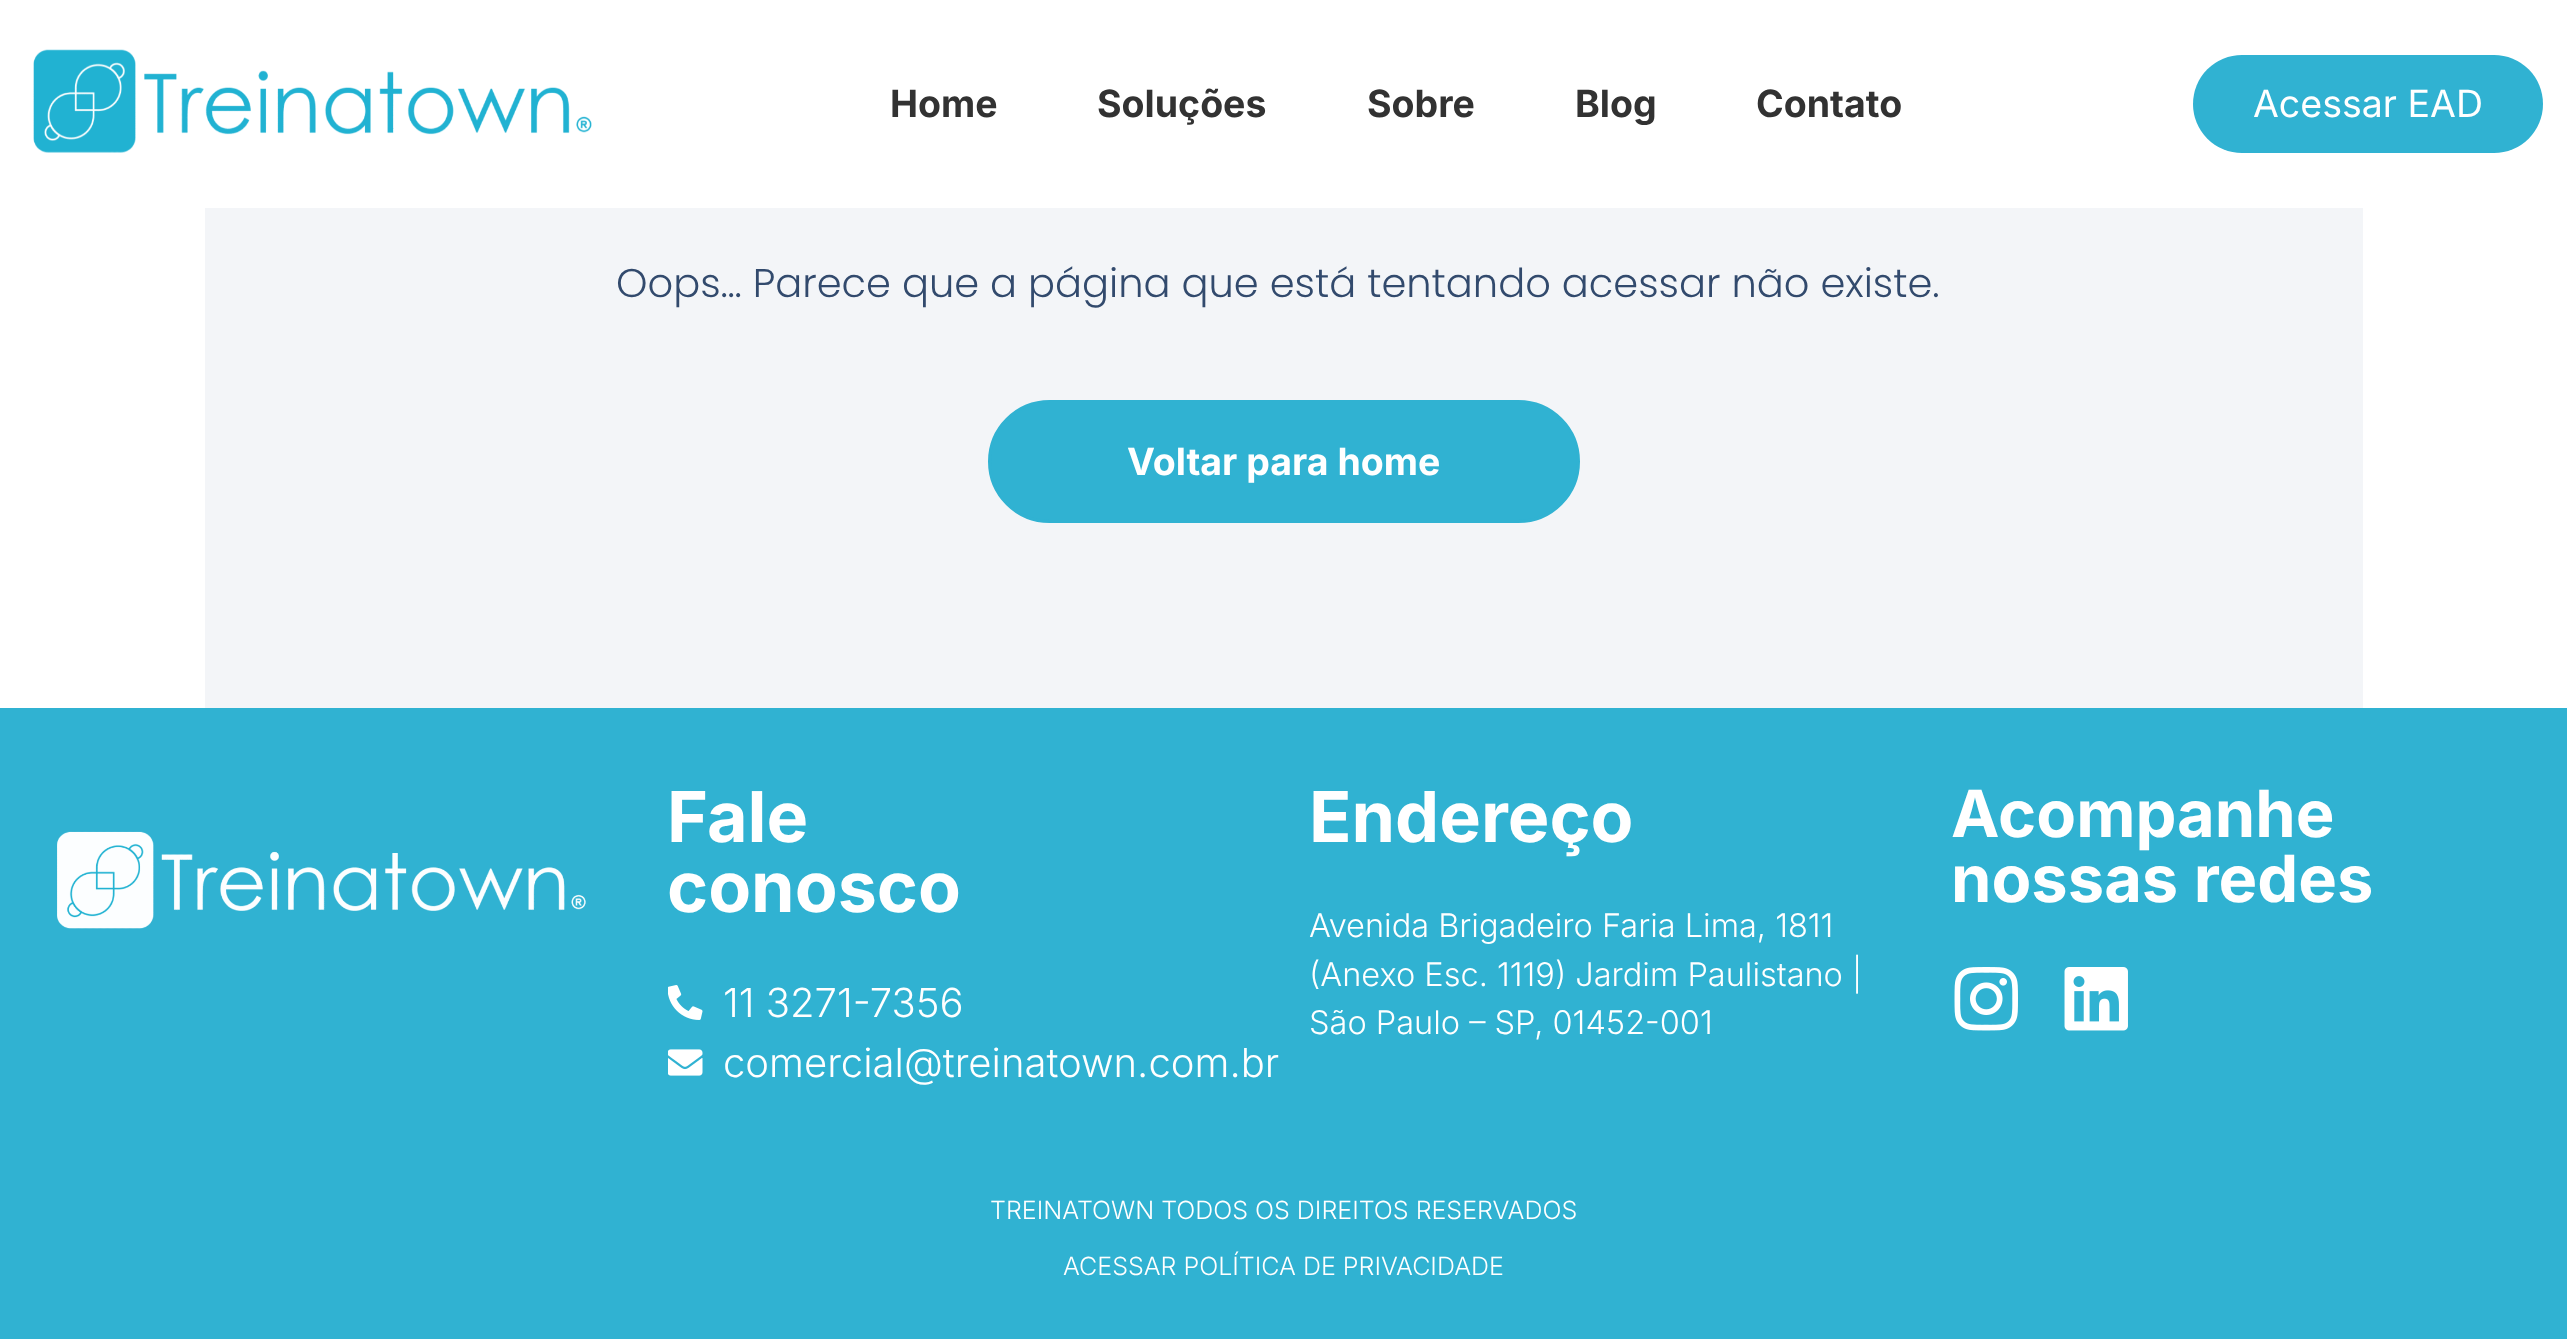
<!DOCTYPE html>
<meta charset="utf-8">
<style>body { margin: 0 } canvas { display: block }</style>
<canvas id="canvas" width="2567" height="1339"></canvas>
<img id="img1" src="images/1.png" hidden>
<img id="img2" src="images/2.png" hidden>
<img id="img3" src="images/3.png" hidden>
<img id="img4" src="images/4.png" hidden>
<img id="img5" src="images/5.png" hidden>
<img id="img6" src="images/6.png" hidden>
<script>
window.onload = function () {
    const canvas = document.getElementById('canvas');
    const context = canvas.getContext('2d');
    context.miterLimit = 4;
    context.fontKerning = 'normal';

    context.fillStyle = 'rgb(255, 255, 255)';
    context.fillRect(0, 0, 2567, 1339);
    context.drawImage(document.getElementById('img1'), 33, 49, 559, 104);
    context.fillStyle = 'rgb(48, 178, 210)';
    context.beginPath();
    context.roundRect(2193, 55, 350, 98, 49);
    context.fill();
    context.fillStyle = 'rgb(243, 245, 248)';
    context.fillRect(205, 208, 2158, 500);
    context.fillStyle = 'rgb(48, 178, 210)';
    context.beginPath();
    context.roundRect(989.5, 401.5, 589, 120, 60);
    context.fill();
    context.strokeStyle = 'rgb(48, 178, 210)';
    context.lineWidth = 3;
    context.stroke();
    context.fillRect(0, 708, 2567, 631);
    context.drawImage(document.getElementById('img2'), 57, 831, 529, 98);
    context.drawImage(document.getElementById('img3'), 668, 985, 35, 35);
    context.drawImage(document.getElementById('img4'), 668, 1049, 35, 27);
    context.drawImage(document.getElementById('img5'), 1954, 967, 64, 64);
    context.drawImage(document.getElementById('img6'), 2064, 967, 64, 64);
    context.font = 'bold 37.5px Inter';
    context.fillStyle = 'rgb(50, 50, 50)';
    context.fillText('Home', 890, 117);
    context.fillText('Soluções', 1097, 117);
    context.fillText('Sobre', 1367, 117);
    context.fillText('Blog', 1575, 117);
    context.fillText('Contato', 1756, 117);
    context.font = '37.5px Inter';
    context.fillStyle = 'rgb(255, 255, 255)';
    context.fillText('Acessar EAD', 2253, 117);
    context.font = '300 40px Poppins';
    context.fillStyle = 'rgb(50, 74, 109)';
    context.fillText('Oops… Parece que a página que está tentando acessar não existe.', 616, 297);
    context.font = 'bold 37.5px Inter';
    context.fillStyle = 'rgb(255, 255, 255)';
    context.fillText('Voltar para home', 1127, 475);
    context.font = 'bold 70px Inter';
    context.fillText('Fale', 667, 842);
    context.fillText('conosco', 667, 912);
    context.font = '300 40px Inter';
    context.fillText('11 3271-7356', 723, 1017);
    context.fillText('comercial@treinatown.com.br', 723, 1077);
    context.font = 'bold 70px Inter';
    context.fillText('Endereço', 1309, 842);
    context.font = '300 32.5px Inter';
    context.fillText('Avenida Brigadeiro Faria Lima, 1811', 1309, 937);
    context.fillText('(Anexo Esc. 1119) Jardim Paulistano |', 1309, 986);
    context.fillText('São Paulo – SP, 01452-001', 1309, 1034);
    context.font = 'bold 65px Inter';
    context.fillText('Acompanhe', 1951, 837);
    context.fillText('nossas redes', 1951, 902);
    context.font = '300 25px Inter';
    context.fillText('TREINATOWN TODOS OS DIREITOS RESERVADOS', 990, 1219);
    context.fillText('ACESSAR POLÍTICA DE PRIVACIDADE', 1063, 1275);
};
</script>
